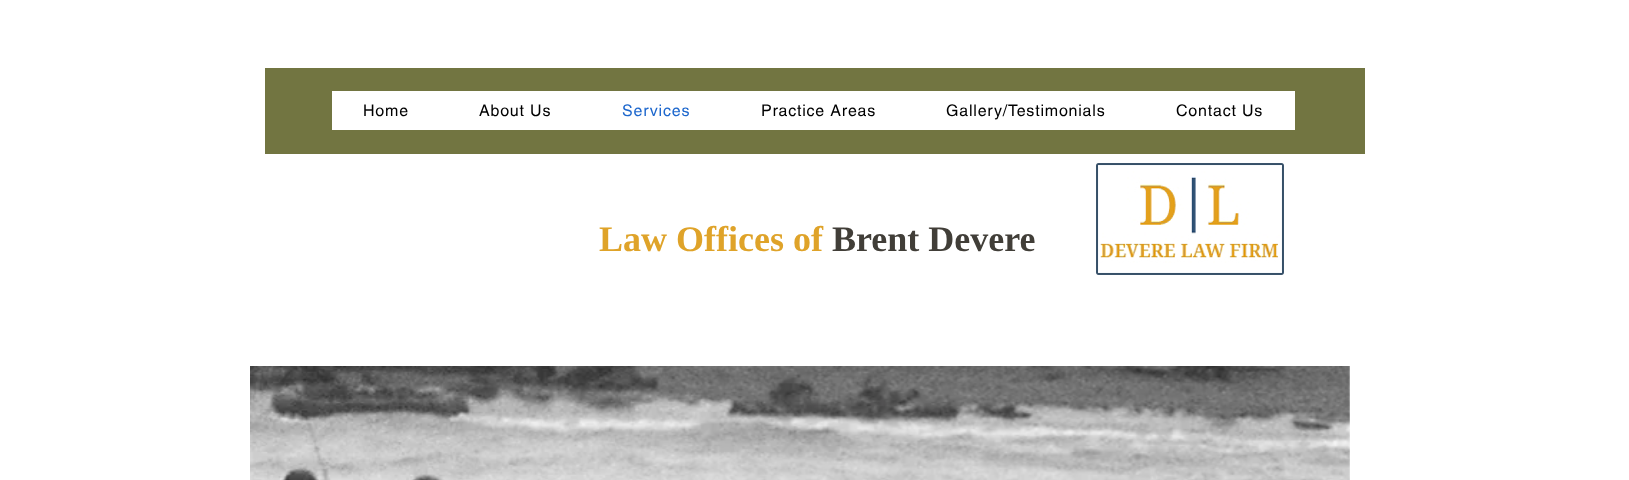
<!DOCTYPE html>
<meta charset="utf-8">
<style>body { margin: 0 } canvas { display: block }</style>
<canvas id="canvas" width="1629" height="480"></canvas>
<img id="img1" src="images/1.png" hidden>
<img id="img2" src="images/2.png" hidden>
<script>
window.onload = function () {
    const canvas = document.getElementById('canvas');
    const context = canvas.getContext('2d');
    context.miterLimit = 4;
    context.fontKerning = 'normal';

    context.fillStyle = 'rgb(255, 255, 255)';
    context.fillRect(0, 0, 1629, 480);
    context.fillStyle = 'rgb(114, 117, 65)';
    context.fillRect(265, 68, 1100, 86);
    context.fillStyle = 'rgb(255, 255, 255)';
    context.fillRect(332, 91, 963, 39);
    context.drawImage(document.getElementById('img1'), 1096, 163, 188, 112);
    context.drawImage(document.getElementById('img2'), 250, 366, 1100, 114);
    context.letterSpacing = '0.8px';
    context.font = '16px helvetica';
    context.fillStyle = 'rgb(0, 0, 0)';
    context.fillText('Home', 363, 116);
    context.fillText('About Us', 479, 116);
    context.fillStyle = 'rgb(29, 103, 205)';
    context.fillText('Services', 622, 116);
    context.fillStyle = 'rgb(0, 0, 0)';
    context.fillText('Practice Areas', 761, 116);
    context.fillText('Gallery/Testimonials', 946, 116);
    context.fillText('Contact Us', 1176, 116);
    context.letterSpacing = '0px';
    context.font = 'bold 36px Liberation Serif';
    context.fillStyle = 'rgb(223, 163, 41)';
    context.fillText('Law Offices of', 599, 251);
    context.fillStyle = 'rgb(65, 62, 56)';
    context.fillText('Brent Devere', 832, 251);
};
</script>
